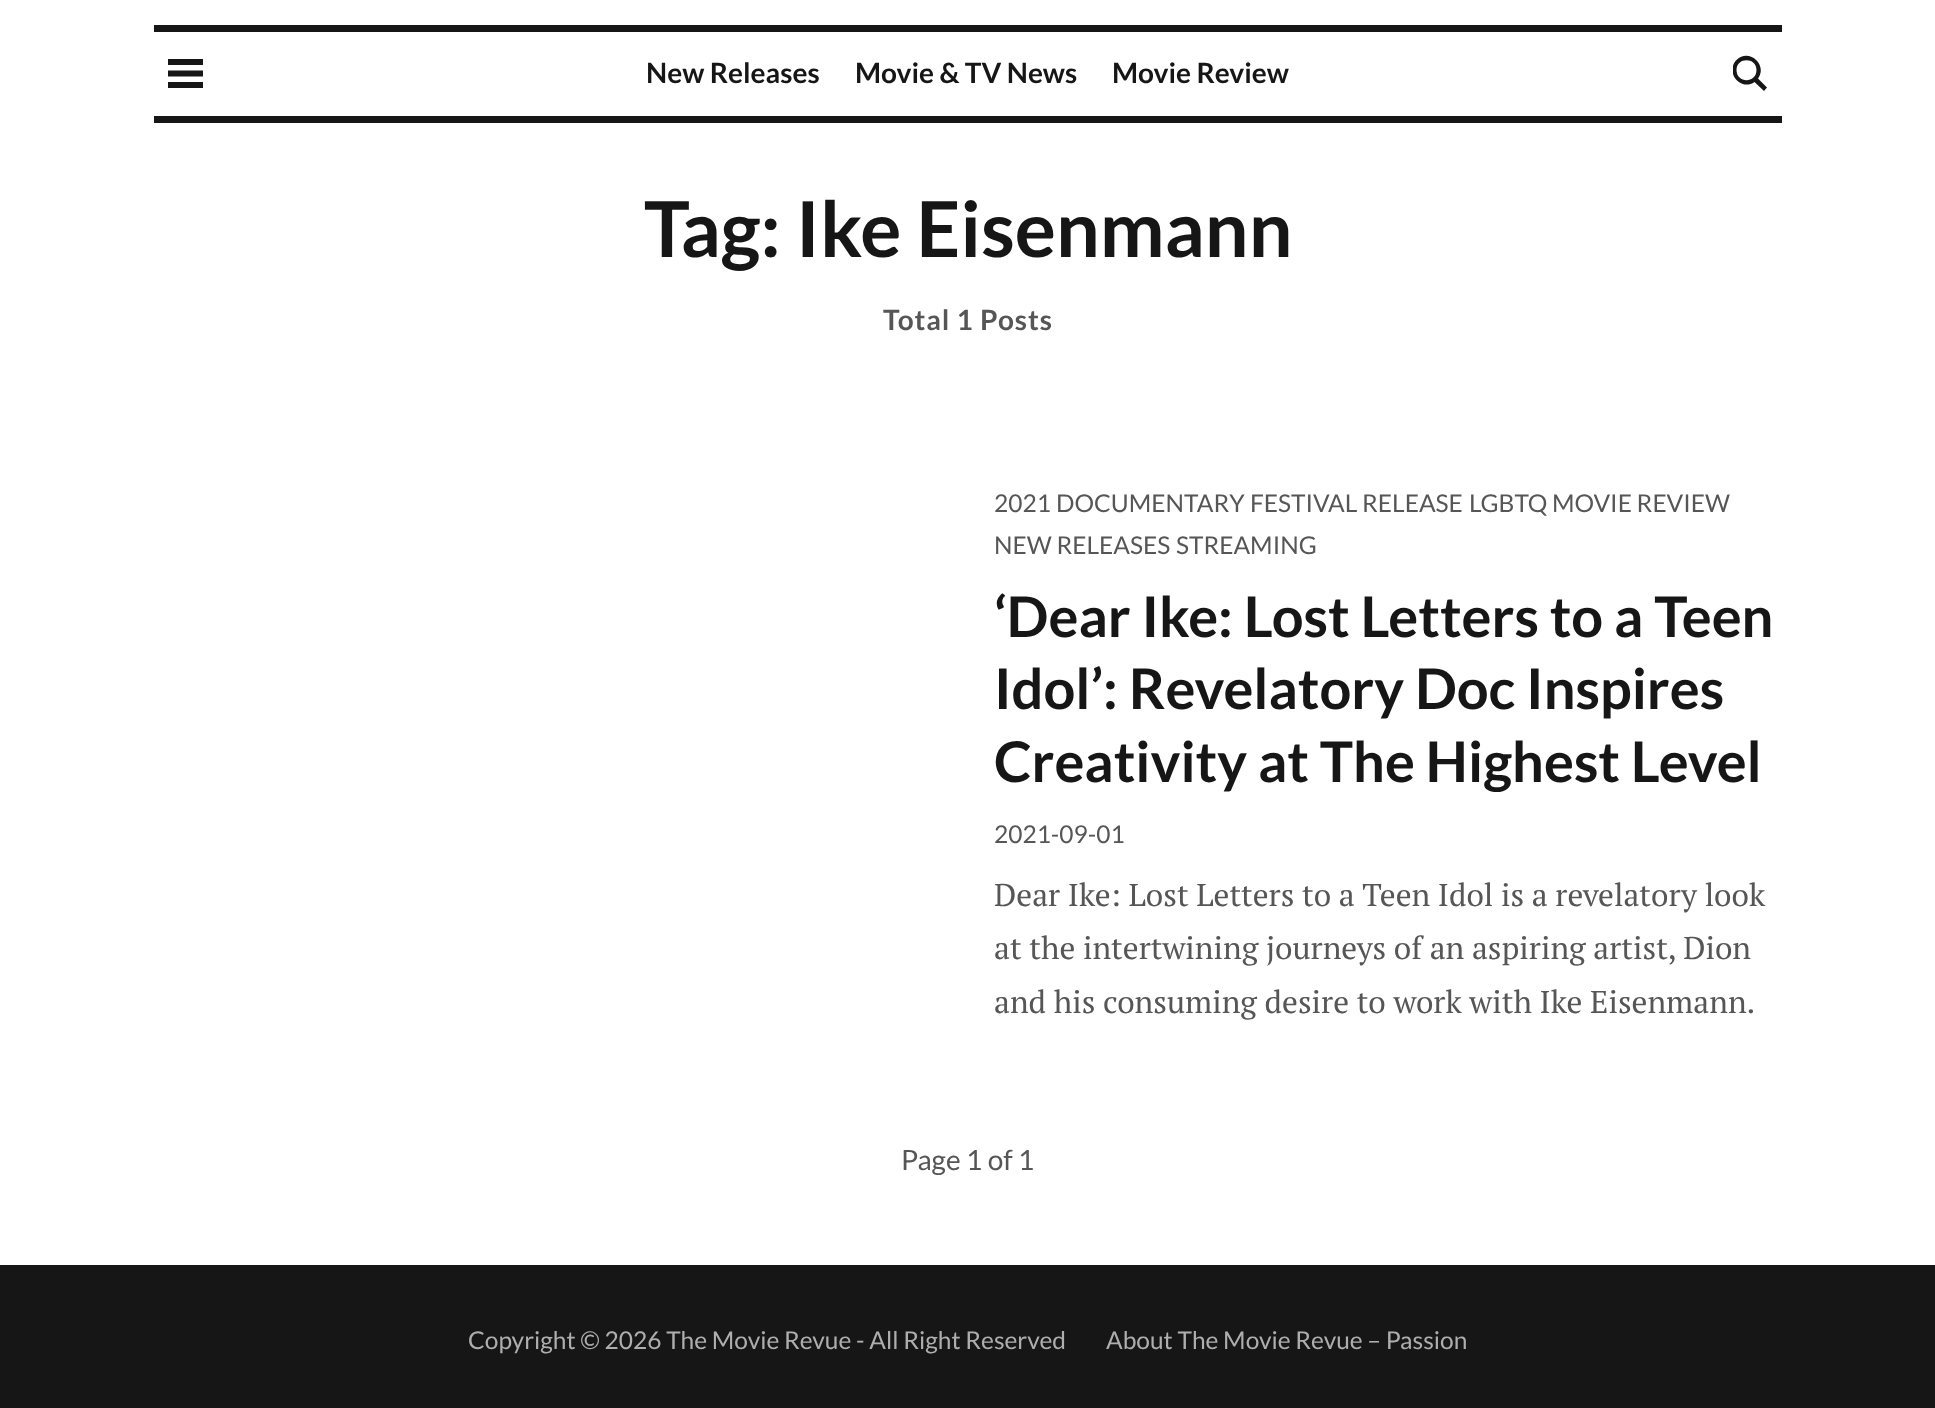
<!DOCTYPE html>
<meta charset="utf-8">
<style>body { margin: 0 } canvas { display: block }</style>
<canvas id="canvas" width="1935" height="1408"></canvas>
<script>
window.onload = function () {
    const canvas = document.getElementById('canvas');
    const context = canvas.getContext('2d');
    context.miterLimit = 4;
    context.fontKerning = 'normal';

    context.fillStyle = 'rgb(255, 255, 255)';
    context.fillRect(0, 0, 1935, 1408);
    context.fillStyle = 'rgb(22, 22, 22)';
    context.fillRect(154, 25, 1628, 7);
    context.fillRect(154, 116, 1628, 7);
    context.beginPath();
    context.moveTo(203, 65);
    context.lineTo(168, 65);
    context.lineTo(168, 59);
    context.lineTo(203, 59);
    context.closePath();
    context.moveTo(203, 70.5);
    context.lineTo(168, 70.5);
    context.lineTo(168, 76.5);
    context.lineTo(203, 76.5);
    context.closePath();
    context.moveTo(203, 82);
    context.lineTo(168, 82);
    context.lineTo(168, 88);
    context.lineTo(203, 88);
    context.closePath();
    context.fill();
    context.save();
    context.beginPath();
    context.rect(1733, 53, 35, 42);
    context.clip();
    context.beginPath();
    context.moveTo(1767, 87.5);
    context.lineTo(1758, 78.5);
    context.bezierCurveTo(1768, 65, 1749, 47.5, 1736.5, 60);
    context.bezierCurveTo(1724.5, 72.5, 1741, 91.5, 1754.5, 82);
    context.lineTo(1764, 91);
    context.closePath();
    context.moveTo(1736.5, 70);
    context.bezierCurveTo(1736.5, 57, 1756.5, 57, 1756.5, 70);
    context.bezierCurveTo(1756.5, 83.5, 1736.5, 83.5, 1736.5, 70);
    context.closePath();
    context.fill();
    context.restore();
    context.fillRect(0, 1265, 1935, 143);
    context.font = 'bold 28px Lato';
    context.fillText('New Releases', 646, 83);
    context.fillText('Movie & TV News', 855, 83);
    context.fillText('Movie Review', 1112, 83);
    context.font = 'bold 77px Lato';
    context.fillText('Tag: Ike Eisenmann', 644, 257);
    context.letterSpacing = '0.9px';
    context.font = 'bold 28px Lato';
    context.fillStyle = 'rgb(86, 86, 86)';
    context.fillText('Total 1 Posts', 883, 330);
    context.letterSpacing = '0px';
    context.font = '24.5px Lato';
    context.fillText('2021', 994, 512);
    context.fillText('DOCUMENTARY', 1056, 512);
    context.fillText('FESTIVAL RELEASE', 1250, 512);
    context.fillText('LGBTQ', 1469, 512);
    context.fillText('MOVIE REVIEW', 1552, 512);
    context.fillText('NEW RELEASES', 994, 554);
    context.fillText('STREAMING', 1176, 554);
    context.font = 'bold 56px Lato';
    context.fillStyle = 'rgb(22, 22, 22)';
    context.fillText('‘Dear Ike: Lost Letters to a Teen', 994, 637);
    context.fillText('Idol’: Revelatory Doc Inspires', 994, 709);
    context.fillText('Creativity at The Highest Level', 994, 782);
    context.font = '24.5px Lato';
    context.fillStyle = 'rgb(86, 86, 86)';
    context.fillText('2021-09-01', 994, 843);
    context.font = '31.5px PT Serif';
    context.fillText('Dear Ike: Lost Letters to a Teen Idol is a revelatory look', 994, 906);
    context.fillText('at the intertwining journeys of an aspiring artist, Dion', 994, 959);
    context.fillText('and his consuming desire to work with Ike Eisenmann.', 994, 1013);
    context.font = '28px Lato';
    context.fillText('Page 1 of 1', 901, 1170);
    context.font = '24.5px Lato';
    context.fillStyle = 'rgb(174, 174, 174)';
    context.fillText('Copyright © 2026 The Movie Revue - All Right Reserved', 468, 1349);
    context.fillText('About The Movie Revue – Passion', 1106, 1349);
};
</script>
